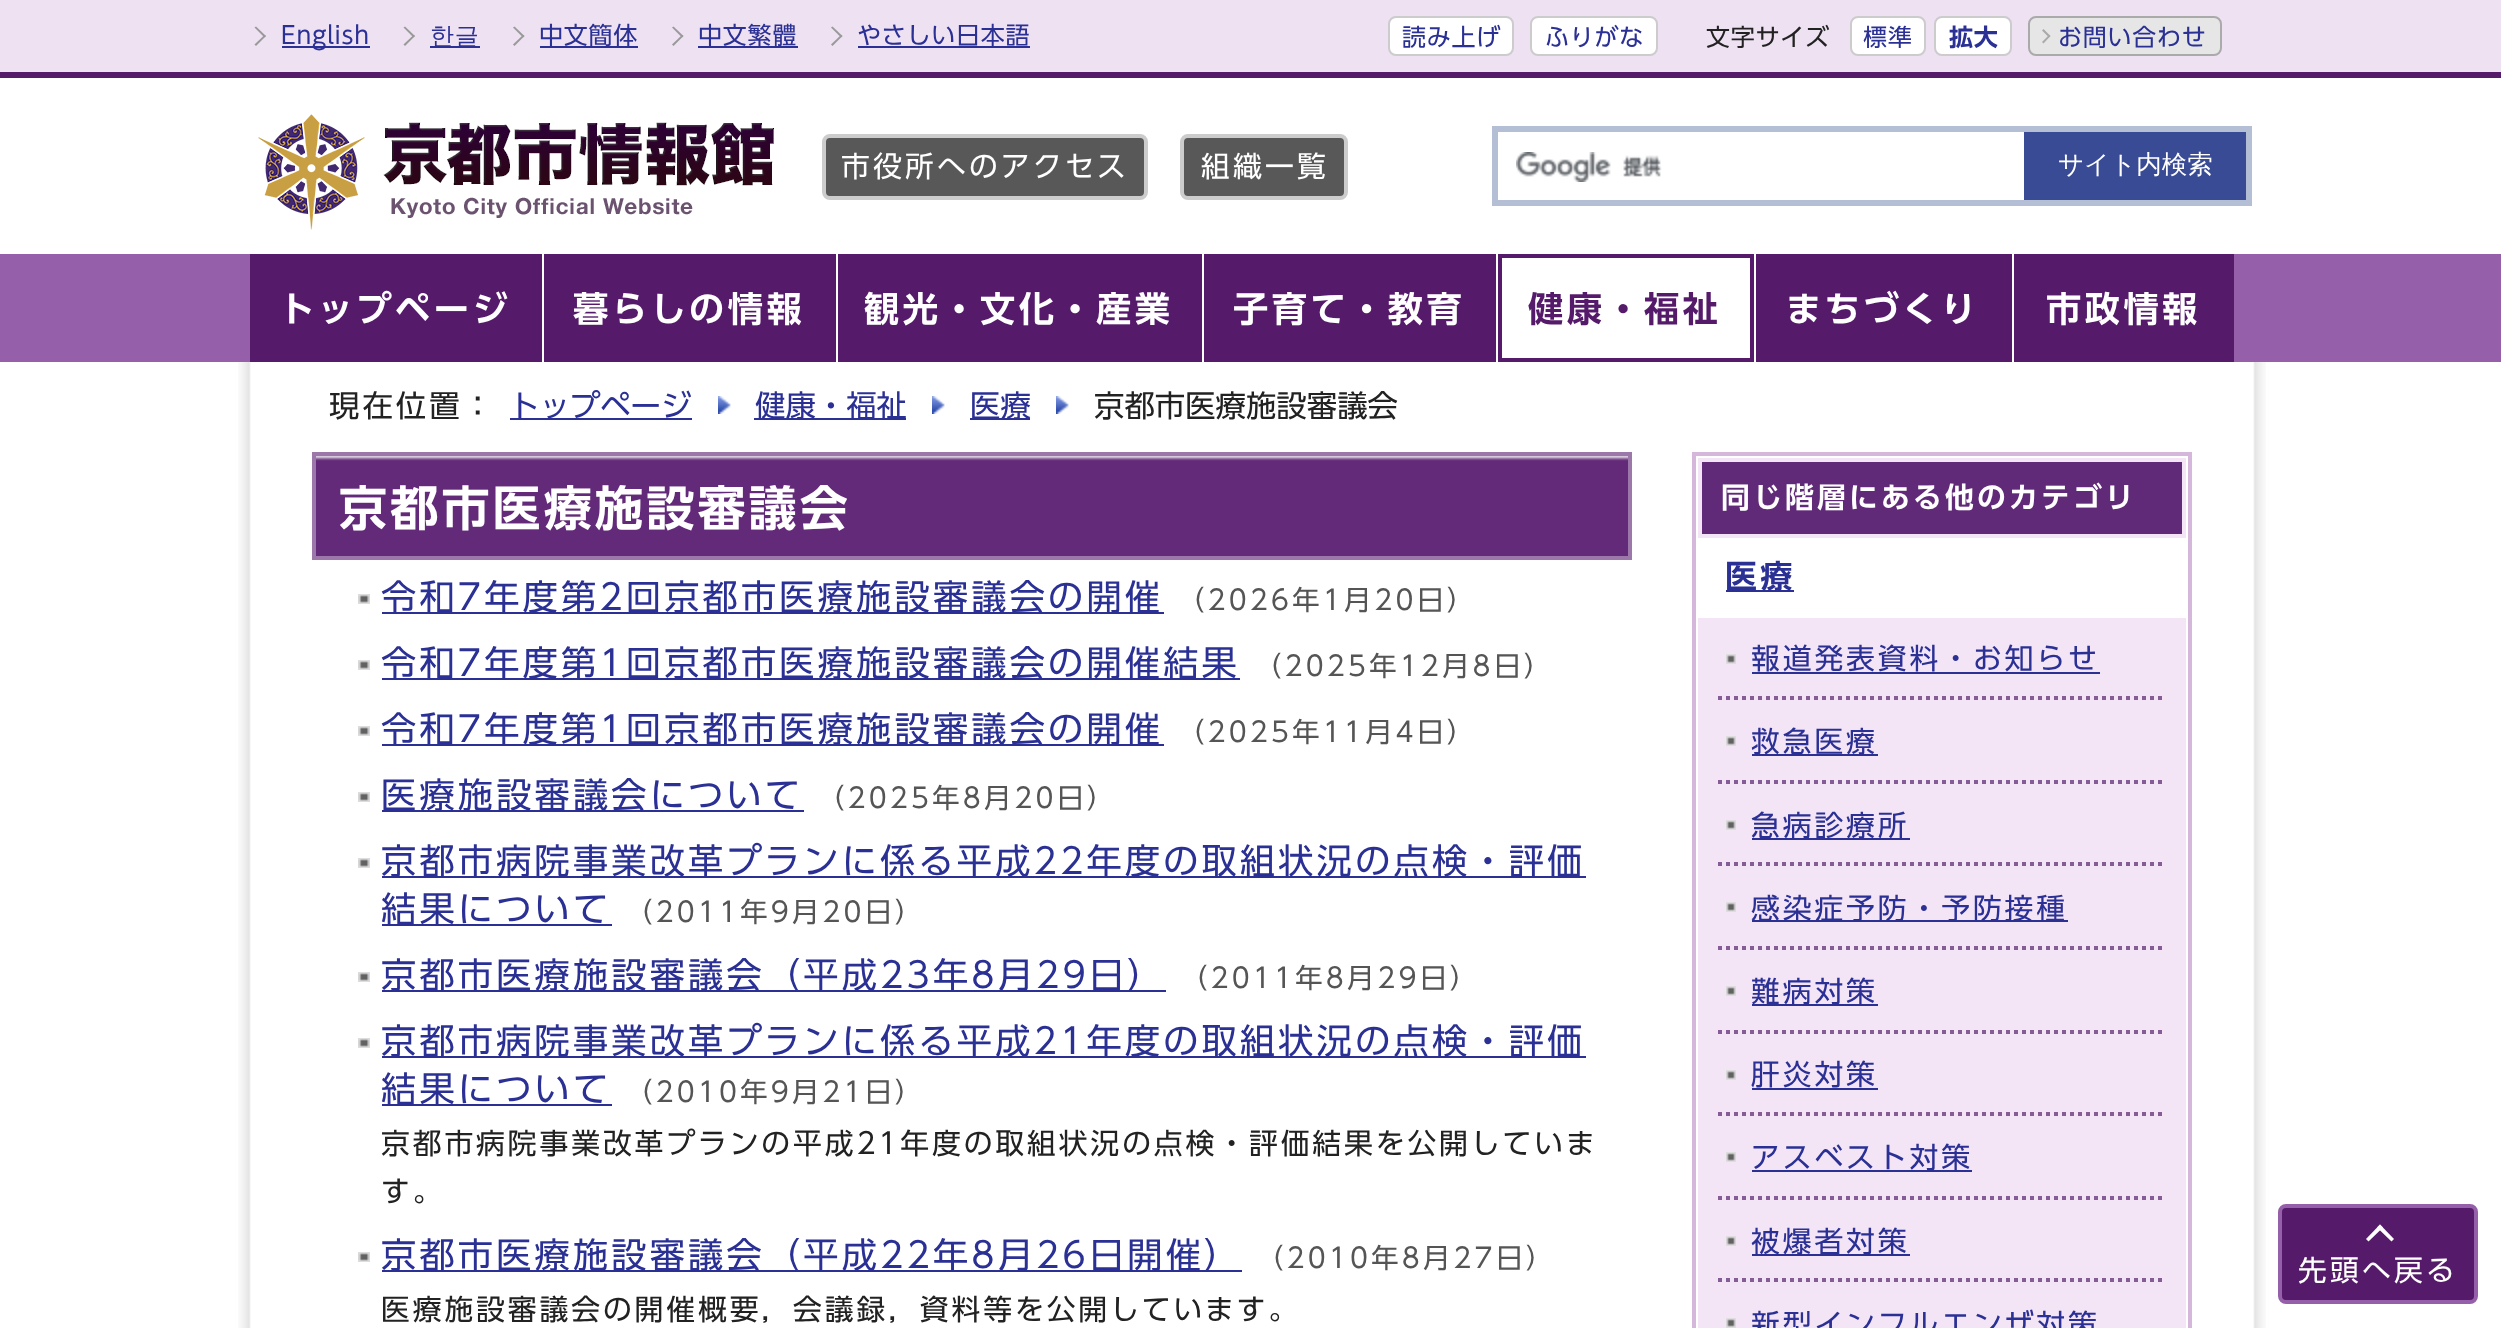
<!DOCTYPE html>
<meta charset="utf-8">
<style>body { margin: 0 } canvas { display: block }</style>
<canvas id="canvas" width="2501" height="1328"></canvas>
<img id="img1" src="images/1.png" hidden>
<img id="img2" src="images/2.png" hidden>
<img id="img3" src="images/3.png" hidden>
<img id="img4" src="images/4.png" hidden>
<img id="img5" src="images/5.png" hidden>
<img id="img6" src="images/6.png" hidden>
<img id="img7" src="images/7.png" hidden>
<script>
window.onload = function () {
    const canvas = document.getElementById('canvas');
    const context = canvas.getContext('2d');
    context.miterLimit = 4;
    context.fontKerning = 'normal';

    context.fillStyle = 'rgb(255, 255, 255)';
    context.fillRect(0, 0, 2501, 1328);
    context.drawImage(document.getElementById('img1'), 238, 362, 2028, 966);
    context.fillStyle = 'rgb(237, 225, 242)';
    context.fillRect(0, 0, 2501, 72);
    context.fillStyle = 'rgb(85, 26, 106)';
    context.fillRect(0, 72, 2501, 6);
    context.fillStyle = 'rgb(153, 153, 153)';
    context.beginPath();
    context.moveTo(254.5, 27.5);
    context.lineTo(256, 26.5);
    context.lineTo(266, 36);
    context.lineTo(264.5, 37.5);
    context.closePath();
    context.fill();
    context.beginPath();
    context.moveTo(254.5, 44.5);
    context.lineTo(264.5, 35);
    context.lineTo(266, 36);
    context.lineTo(256, 46);
    context.closePath();
    context.fill();
    context.fillStyle = 'rgb(43, 48, 149)';
    context.fillRect(282, 46, 88, 2);
    context.fillStyle = 'rgb(153, 153, 153)';
    context.beginPath();
    context.moveTo(403.5, 27.5);
    context.lineTo(405, 26.5);
    context.lineTo(415, 36);
    context.lineTo(413.5, 37.5);
    context.closePath();
    context.fill();
    context.beginPath();
    context.moveTo(403.5, 44.5);
    context.lineTo(413.5, 35);
    context.lineTo(415, 36);
    context.lineTo(405, 46);
    context.closePath();
    context.fill();
    context.fillStyle = 'rgb(43, 48, 149)';
    context.fillRect(430, 46, 50, 2);
    context.fillStyle = 'rgb(153, 153, 153)';
    context.beginPath();
    context.moveTo(513, 27.5);
    context.lineTo(514.5, 26.5);
    context.lineTo(524.5, 36);
    context.lineTo(523, 37.5);
    context.closePath();
    context.fill();
    context.beginPath();
    context.moveTo(513, 44.5);
    context.lineTo(523, 35);
    context.lineTo(524.5, 36);
    context.lineTo(514.5, 46);
    context.closePath();
    context.fill();
    context.fillStyle = 'rgb(43, 48, 149)';
    context.fillRect(540, 46, 98, 2);
    context.fillStyle = 'rgb(153, 153, 153)';
    context.beginPath();
    context.moveTo(672, 27.5);
    context.lineTo(673.5, 26.5);
    context.lineTo(683.5, 36);
    context.lineTo(682, 37.5);
    context.closePath();
    context.fill();
    context.beginPath();
    context.moveTo(672, 44.5);
    context.lineTo(682, 35);
    context.lineTo(683.5, 36);
    context.lineTo(673.5, 46);
    context.closePath();
    context.fill();
    context.fillStyle = 'rgb(43, 48, 149)';
    context.fillRect(698, 46, 100, 2);
    context.fillStyle = 'rgb(153, 153, 153)';
    context.beginPath();
    context.moveTo(831, 27.5);
    context.lineTo(832.5, 26.5);
    context.lineTo(842.5, 36);
    context.lineTo(841, 37.5);
    context.closePath();
    context.fill();
    context.beginPath();
    context.moveTo(831, 44.5);
    context.lineTo(841, 35);
    context.lineTo(842.5, 36);
    context.lineTo(832.5, 46);
    context.closePath();
    context.fill();
    context.fillStyle = 'rgb(43, 48, 149)';
    context.fillRect(858, 46, 172, 2);
    context.fillStyle = 'rgb(255, 255, 255)';
    context.beginPath();
    context.roundRect(1389, 17, 124, 38, 7);
    context.fill();
    context.strokeStyle = 'rgb(204, 204, 204)';
    context.lineWidth = 2;
    context.stroke();
    context.beginPath();
    context.roundRect(1531, 17, 126, 38, 7);
    context.fill();
    context.stroke();
    context.beginPath();
    context.roundRect(1851, 17, 74, 38, 7);
    context.fill();
    context.stroke();
    context.beginPath();
    context.roundRect(1935, 17, 76, 38, 7);
    context.fill();
    context.stroke();
    context.fillStyle = 'rgb(230, 230, 230)';
    context.beginPath();
    context.roundRect(2029, 17, 192, 38, 7);
    context.fill();
    context.strokeStyle = 'rgb(170, 170, 170)';
    context.stroke();
    context.fillStyle = 'rgb(170, 170, 170)';
    context.beginPath();
    context.moveTo(2042, 30.5);
    context.lineTo(2043.5, 29);
    context.lineTo(2050.5, 36);
    context.lineTo(2049, 37.5);
    context.closePath();
    context.fill();
    context.beginPath();
    context.moveTo(2042, 42);
    context.lineTo(2049, 35);
    context.lineTo(2050.5, 36);
    context.lineTo(2043.5, 43.5);
    context.closePath();
    context.fill();
    context.drawImage(document.getElementById('img2'), 258, 114, 516, 116);
    context.fillStyle = 'rgb(88, 88, 88)';
    context.beginPath();
    context.roundRect(824, 136, 322, 62, 6);
    context.fill();
    context.strokeStyle = 'rgb(204, 204, 204)';
    context.lineWidth = 4;
    context.stroke();
    context.beginPath();
    context.roundRect(1182, 136, 164, 62, 6);
    context.fill();
    context.stroke();
    context.drawImage(document.getElementById('img3'), 1516, 152, 146, 30);
    context.fillStyle = 'rgb(180, 190, 213)';
    context.fillRect(1492, 126, 760, 6);
    context.fillRect(1492, 200, 532, 6);
    context.fillRect(1492, 126, 6, 80);
    context.fillStyle = 'rgb(58, 75, 149)';
    context.fillRect(2024, 132, 222, 68);
    context.fillStyle = 'rgb(180, 190, 213)';
    context.fillRect(2246, 126, 6, 80);
    context.fillRect(2024, 200, 228, 6);
    context.fillStyle = 'rgb(150, 95, 170)';
    context.fillRect(0, 254, 2501, 108);
    context.fillStyle = 'rgb(255, 255, 255)';
    context.fillRect(542, 254, 2, 108);
    context.fillStyle = 'rgb(85, 26, 106)';
    context.fillRect(250, 254, 292, 108);
    context.fillStyle = 'rgb(255, 255, 255)';
    context.fillRect(836, 254, 2, 108);
    context.fillStyle = 'rgb(85, 26, 106)';
    context.fillRect(544, 254, 292, 108);
    context.fillStyle = 'rgb(255, 255, 255)';
    context.fillRect(1202, 254, 2, 108);
    context.fillStyle = 'rgb(85, 26, 106)';
    context.fillRect(838, 254, 364, 108);
    context.fillStyle = 'rgb(255, 255, 255)';
    context.fillRect(1496, 254, 2, 108);
    context.fillStyle = 'rgb(85, 26, 106)';
    context.fillRect(1204, 254, 292, 108);
    context.fillStyle = 'rgb(255, 255, 255)';
    context.fillRect(1754, 254, 2, 108);
    context.beginPath();
    context.rect(1500, 256, 252, 104);
    context.fill();
    context.strokeStyle = 'rgb(85, 26, 106)';
    context.stroke();
    context.fillRect(2012, 254, 2, 108);
    context.fillStyle = 'rgb(85, 26, 106)';
    context.fillRect(1756, 254, 256, 108);
    context.fillRect(2014, 254, 220, 108);
    context.fillStyle = 'rgb(43, 48, 149)';
    context.fillRect(510, 418, 182, 2);
    context.drawImage(document.getElementById('img4'), 718, 396, 13, 18);
    context.fillRect(754, 418, 152, 2);
    context.drawImage(document.getElementById('img4'), 932, 396, 13, 18);
    context.fillRect(970, 418, 60, 2);
    context.drawImage(document.getElementById('img4'), 1056, 396, 13, 18);
    context.fillStyle = 'rgb(98, 42, 120)';
    context.fillRect(316, 461, 1312, 95);
    context.drawImage(document.getElementById('img5'), 316, 456, 1312, 5);
    context.strokeStyle = 'rgb(156, 120, 170)';
    context.strokeRect(314, 454, 1316, 104);
    context.drawImage(document.getElementById('img6'), 358, 594, 12, 10);
    context.fillStyle = 'rgb(43, 48, 149)';
    context.fillRect(382, 612, 782, 2);
    context.drawImage(document.getElementById('img6'), 358, 660, 12, 10);
    context.fillRect(382, 678, 858, 2);
    context.drawImage(document.getElementById('img6'), 358, 726, 12, 10);
    context.fillRect(382, 744, 782, 2);
    context.drawImage(document.getElementById('img6'), 358, 792, 12, 10);
    context.fillRect(382, 810, 422, 2);
    context.drawImage(document.getElementById('img6'), 358, 858, 12, 10);
    context.fillRect(382, 876, 1204, 2);
    context.fillRect(382, 924, 230, 2);
    context.drawImage(document.getElementById('img6'), 358, 972, 12, 10);
    context.fillRect(382, 990, 784, 2);
    context.drawImage(document.getElementById('img6'), 358, 1038, 12, 10);
    context.fillRect(382, 1056, 1204, 2);
    context.fillRect(382, 1104, 230, 2);
    context.drawImage(document.getElementById('img6'), 358, 1252, 12, 10);
    context.fillRect(382, 1270, 860, 2);
    context.strokeStyle = 'rgb(212, 183, 219)';
    context.strokeRect(1694, 454, 496, 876);
    context.fillStyle = 'rgb(97, 42, 120)';
    context.beginPath();
    context.rect(1700, 460, 484, 76);
    context.fill();
    context.strokeStyle = 'rgb(243, 229, 246)';
    context.stroke();
    context.fillStyle = 'rgb(43, 48, 149)';
    context.fillRect(1726, 590, 68, 2);
    context.fillStyle = 'rgb(243, 229, 246)';
    context.fillRect(1698, 618, 488, 710);
    context.drawImage(document.getElementById('img7'), 1726, 654, 10, 10);
    context.beginPath();
    context.moveTo(1718, 698);
    context.lineTo(2166, 698);
    context.strokeStyle = 'rgb(134, 92, 151)';
    context.setLineDash([4, 4]);
    context.stroke();
    context.fillStyle = 'rgb(43, 48, 149)';
    context.fillRect(1752, 672, 348, 2);
    context.drawImage(document.getElementById('img7'), 1726, 736, 10, 10);
    context.beginPath();
    context.moveTo(1718, 782);
    context.lineTo(2166, 782);
    context.stroke();
    context.fillRect(1752, 754, 126, 2);
    context.drawImage(document.getElementById('img7'), 1726, 820, 10, 10);
    context.beginPath();
    context.moveTo(1718, 864);
    context.lineTo(2166, 864);
    context.stroke();
    context.fillRect(1752, 838, 158, 2);
    context.drawImage(document.getElementById('img7'), 1726, 902, 10, 10);
    context.beginPath();
    context.moveTo(1718, 948);
    context.lineTo(2166, 948);
    context.stroke();
    context.fillRect(1752, 920, 316, 2);
    context.drawImage(document.getElementById('img7'), 1726, 986, 10, 10);
    context.beginPath();
    context.moveTo(1718, 1032);
    context.lineTo(2166, 1032);
    context.stroke();
    context.fillRect(1752, 1004, 126, 2);
    context.drawImage(document.getElementById('img7'), 1726, 1070, 10, 10);
    context.beginPath();
    context.moveTo(1718, 1114);
    context.lineTo(2166, 1114);
    context.stroke();
    context.fillRect(1752, 1088, 126, 2);
    context.drawImage(document.getElementById('img7'), 1726, 1152, 10, 10);
    context.beginPath();
    context.moveTo(1718, 1198);
    context.lineTo(2166, 1198);
    context.stroke();
    context.fillRect(1752, 1170, 220, 2);
    context.drawImage(document.getElementById('img7'), 1726, 1236, 10, 10);
    context.beginPath();
    context.moveTo(1718, 1280);
    context.lineTo(2166, 1280);
    context.stroke();
    context.fillRect(1752, 1254, 158, 2);
    context.drawImage(document.getElementById('img7'), 1726, 1318, 10, 10);
    context.fillStyle = 'rgb(85, 26, 106)';
    context.beginPath();
    context.roundRect(2280, 1206, 196, 96, 6);
    context.fill();
    context.strokeStyle = 'rgb(150, 95, 170)';
    context.setLineDash([]);
    context.stroke();
    context.fillStyle = 'rgb(255, 255, 255)';
    context.beginPath();
    context.moveTo(2368.5, 1241.5);
    context.lineTo(2366, 1239);
    context.lineTo(2380, 1224.5);
    context.lineTo(2383, 1227.5);
    context.closePath();
    context.fill();
    context.beginPath();
    context.moveTo(2391.5, 1241.5);
    context.lineTo(2377, 1227.5);
    context.lineTo(2380, 1224.5);
    context.lineTo(2394, 1239);
    context.closePath();
    context.fill();
    context.letterSpacing = '0.75px';
    context.font = '24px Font';
    context.fillStyle = 'rgb(43, 48, 149)';
    context.fillText('English', 281, 44);
    context.font = '500 24px WenQuanYi Zen Hei';
    context.fillText('한글', 430, 44);
    context.font = '24px Font';
    context.fillText('中文簡体', 539, 44);
    context.fillText('中文繁體', 698, 44);
    context.fillText('やさしい日本語', 857, 44);
    context.fillText('読み上げ', 1402, 46);
    context.fillText('ふりがな', 1545, 46);
    context.fillStyle = 'rgb(34, 34, 34)';
    context.fillText('文字サイズ', 1706, 46);
    context.fillStyle = 'rgb(43, 48, 149)';
    context.fillText('標準', 1863, 46);
    context.font = '600 24px Font';
    context.fillText('拡大', 1949, 46);
    context.font = '24px Font';
    context.fillText('お問い合わせ', 2058, 46);
    context.letterSpacing = '3.2px';
    context.font = '28.8px Font';
    context.fillStyle = 'rgb(255, 255, 255)';
    context.fillText('市役所へのアクセス', 841, 177);
    context.fillText('組織一覧', 1201, 177);
    context.letterSpacing = '0px';
    context.font = '500 25.5px WenQuanYi Zen Hei';
    context.fillText('サイト内検索', 2058, 173);
    context.letterSpacing = '3.5px';
    context.font = '600 35.2px Font';
    context.fillText('トップページ', 279, 322);
    context.fillText('暮らしの情報', 573, 322);
    context.fillText('観光・文化・産業', 864, 322);
    context.fillText('子育て・教育', 1233, 322);
    context.fillStyle = 'rgb(85, 26, 106)';
    context.fillText('健康・福祉', 1528, 322);
    context.fillStyle = 'rgb(255, 255, 255)';
    context.fillText('まちづくり', 1786, 322);
    context.fillText('市政情報', 2046, 322);
    context.letterSpacing = '3px';
    context.font = '30.4px Font';
    context.fillStyle = 'rgb(34, 34, 34)';
    context.fillText('現在位置：', 329, 417);
    context.letterSpacing = '0px';
    context.fillStyle = 'rgb(43, 48, 149)';
    context.fillText('トップページ', 509, 417);
    context.fillText('健康・福祉', 755, 417);
    context.fillText('医療', 970, 417);
    context.fillStyle = 'rgb(34, 34, 34)';
    context.fillText('京都市医療施設審議会', 1094, 417);
    context.letterSpacing = '3.2px';
    context.font = '600 48px Font';
    context.fillStyle = 'rgb(255, 255, 255)';
    context.fillText('京都市医療施設審議会', 339, 526);
    context.font = '35.2px Font';
    context.fillStyle = 'rgb(43, 48, 149)';
    context.fillText('令和7年度第2回京都市医療施設審議会の開催', 381, 610);
    context.font = '27.25px Font';
    context.fillStyle = 'rgb(85, 85, 85)';
    context.fillText('（2026年1月20日）', 1177, 610);
    context.font = '35.2px Font';
    context.fillStyle = 'rgb(43, 48, 149)';
    context.fillText('令和7年度第1回京都市医療施設審議会の開催結果', 381, 676);
    context.font = '27.25px Font';
    context.fillStyle = 'rgb(85, 85, 85)';
    context.fillText('（2025年12月8日）', 1254, 676);
    context.font = '35.2px Font';
    context.fillStyle = 'rgb(43, 48, 149)';
    context.fillText('令和7年度第1回京都市医療施設審議会の開催', 381, 742);
    context.font = '27.25px Font';
    context.fillStyle = 'rgb(85, 85, 85)';
    context.fillText('（2025年11月4日）', 1177, 742);
    context.font = '35.2px Font';
    context.fillStyle = 'rgb(43, 48, 149)';
    context.fillText('医療施設審議会について', 381, 808);
    context.font = '27.25px Font';
    context.fillStyle = 'rgb(85, 85, 85)';
    context.fillText('（2025年8月20日）', 817, 808);
    context.font = '35.2px Font';
    context.fillStyle = 'rgb(43, 48, 149)';
    context.fillText('京都市病院事業改革プランに係る平成22年度の取組状況の点検・評価', 381, 874);
    context.fillText('結果について', 381, 922);
    context.font = '27.25px Font';
    context.fillStyle = 'rgb(85, 85, 85)';
    context.fillText('（2011年9月20日）', 625, 922);
    context.font = '35.2px Font';
    context.fillStyle = 'rgb(43, 48, 149)';
    context.fillText('京都市医療施設審議会（平成23年8月29日）', 381, 988);
    context.font = '27.25px Font';
    context.fillStyle = 'rgb(85, 85, 85)';
    context.fillText('（2011年8月29日）', 1180, 988);
    context.font = '35.2px Font';
    context.fillStyle = 'rgb(43, 48, 149)';
    context.fillText('京都市病院事業改革プランに係る平成21年度の取組状況の点検・評価', 381, 1054);
    context.fillText('結果について', 381, 1102);
    context.font = '27.25px Font';
    context.fillStyle = 'rgb(85, 85, 85)';
    context.fillText('（2010年9月21日）', 625, 1102);
    context.letterSpacing = '2.9px';
    context.font = '28.8px Font';
    context.fillStyle = 'rgb(34, 34, 34)';
    context.fillText('京都市病院事業改革プランの平成21年度の取組状況の点検・評価結果を公開していま', 381, 1154);
    context.fillText('す。', 381, 1202);
    context.letterSpacing = '3.2px';
    context.font = '35.2px Font';
    context.fillStyle = 'rgb(43, 48, 149)';
    context.fillText('京都市医療施設審議会（平成22年8月26日開催）', 381, 1268);
    context.font = '27.25px Font';
    context.fillStyle = 'rgb(85, 85, 85)';
    context.fillText('（2010年8月27日）', 1256, 1268);
    context.letterSpacing = '2.9px';
    context.font = '28.8px Font';
    context.fillStyle = 'rgb(34, 34, 34)';
    context.fillText('医療施設審議会の開催概要，会議録，資料等を公開しています。', 381, 1320);
    context.letterSpacing = '3.2px';
    context.font = '600 28.8px Font';
    context.fillStyle = 'rgb(255, 255, 255)';
    context.fillText('同じ階層にある他のカテゴリ', 1721, 508);
    context.font = '600 32px Font';
    context.fillStyle = 'rgb(43, 48, 149)';
    context.fillText('医療', 1725, 588);
    context.letterSpacing = '2.9px';
    context.font = '28.8px Font';
    context.fillText('報道発表資料・お知らせ', 1751, 669);
    context.fillText('救急医療', 1751, 752);
    context.fillText('急病診療所', 1751, 836);
    context.fillText('感染症予防・予防接種', 1751, 919);
    context.fillText('難病対策', 1751, 1002);
    context.fillText('肝炎対策', 1751, 1085);
    context.fillText('アスベスト対策', 1751, 1168);
    context.fillText('被爆者対策', 1751, 1252);
    context.fillText('新型インフルエンザ対策', 1751, 1335);
    context.letterSpacing = '3.2px';
    context.fillStyle = 'rgb(255, 255, 255)';
    context.fillText('先頭へ戻る', 2298, 1281);
};
</script>
